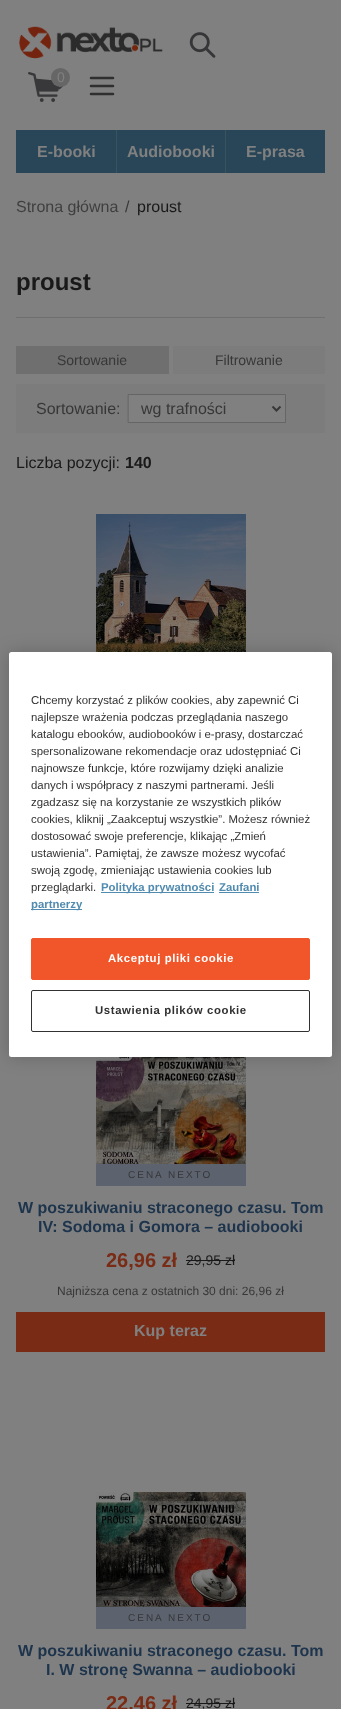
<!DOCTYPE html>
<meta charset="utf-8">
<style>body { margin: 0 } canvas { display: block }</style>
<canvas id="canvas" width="341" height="1709"></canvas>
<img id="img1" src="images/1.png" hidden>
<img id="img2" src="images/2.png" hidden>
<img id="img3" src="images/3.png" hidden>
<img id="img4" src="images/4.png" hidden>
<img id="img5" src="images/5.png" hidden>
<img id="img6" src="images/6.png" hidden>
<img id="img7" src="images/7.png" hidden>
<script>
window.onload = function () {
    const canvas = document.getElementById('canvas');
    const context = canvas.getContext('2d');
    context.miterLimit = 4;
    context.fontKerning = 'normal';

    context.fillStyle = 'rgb(128, 128, 128)';
    context.fillRect(0, 0, 341, 1709);
    context.drawImage(document.getElementById('img1'), 19, 26, 144, 33);
    context.drawImage(document.getElementById('img2'), 189, 32, 27, 26);
    context.drawImage(document.getElementById('img3'), 58, 86, 5, 4);
    context.drawImage(document.getElementById('img4'), 28, 72, 32, 30);
    context.fillStyle = 'rgb(102, 102, 102)';
    context.beginPath();
    context.arc(60.5, 77.5, 9.5, 0, 2 * Math.PI);
    context.fill();
    context.beginPath();
    context.moveTo(91, 78);
    context.lineTo(113, 78);
    context.moveTo(91, 86);
    context.lineTo(113, 86);
    context.moveTo(91, 94);
    context.lineTo(113, 94);
    context.strokeStyle = 'rgb(47, 47, 47)';
    context.lineWidth = 2.5;
    context.lineCap = 'round';
    context.lineJoin = 'round';
    context.stroke();
    context.fillStyle = 'rgb(41, 70, 88)';
    context.fillRect(16, 130, 100, 43);
    context.fillRect(117, 130, 108, 43);
    context.fillStyle = 'rgb(58, 81, 96)';
    context.fillRect(116, 130, 1, 43);
    context.fillStyle = 'rgb(41, 70, 88)';
    context.fillRect(226, 130, 99, 43);
    context.fillStyle = 'rgb(58, 81, 96)';
    context.fillRect(225, 130, 1, 43);
    context.fillStyle = 'rgb(111, 111, 111)';
    context.fillRect(16, 317, 309, 1);
    context.fillRect(16, 346, 153, 28);
    context.fillStyle = 'rgb(124, 124, 124)';
    context.fillRect(173, 346, 152, 28);
    context.fillRect(16, 384, 309, 49);
    context.fillStyle = 'rgb(128, 128, 128)';
    context.beginPath();
    context.rect(128.5, 394.5, 157, 28);
    context.fill();
    context.strokeStyle = 'rgb(101, 101, 101)';
    context.lineWidth = 1;
    context.lineJoin = 'miter';
    context.stroke();
    context.beginPath();
    context.moveTo(272.5, 406.5);
    context.lineTo(276.5, 410.5);
    context.lineTo(280.5, 406.5);
    context.strokeStyle = 'rgb(55, 55, 56)';
    context.lineWidth = 2;
    context.lineCap = 'butt';
    context.stroke();
    context.drawImage(document.getElementById('img5'), 96, 514, 150, 138);
    context.drawImage(document.getElementById('img6'), 96, 1057, 150, 107);
    context.fillStyle = 'rgb(92, 99, 111)';
    context.fillRect(96, 1164, 150, 22);
    context.fillStyle = 'rgb(25, 25, 25)';
    context.fillRect(186, 1260, 49, 1);
    context.fillStyle = 'rgb(121, 43, 21)';
    context.fillRect(16, 1312, 309, 40);
    context.drawImage(document.getElementById('img7'), 96, 1492, 150, 115);
    context.fillStyle = 'rgb(92, 99, 111)';
    context.fillRect(96, 1607, 150, 22);
    context.fillStyle = 'rgb(25, 25, 25)';
    context.fillRect(186, 1703, 49, 1);
    context.fillStyle = 'rgba(0, 0, 0, 0.2)';
    context.filter = 'blur(9px)';
    context.beginPath();
    context.roundRect(9, 652, 323, 405, 2.5);
    context.fill();
    context.filter = 'none';
    context.fillStyle = 'rgb(255, 255, 255)';
    context.beginPath();
    context.roundRect(9, 652, 323, 405, 2.5);
    context.fill();
    context.fillStyle = 'rgb(81, 139, 175)';
    context.fillRect(101, 892, 113, 1);
    context.fillRect(219, 892, 40, 1);
    context.fillRect(31, 909, 51, 1);
    context.fillStyle = 'rgb(241, 86, 42)';
    context.beginPath();
    context.roundRect(31.5, 938.5, 278, 41, 1.5);
    context.fill();
    context.strokeStyle = 'rgb(241, 86, 42)';
    context.lineWidth = 1;
    context.stroke();
    context.beginPath();
    context.roundRect(31.5, 990.5, 278, 41, 1.5);
    context.strokeStyle = 'rgb(49, 49, 49)';
    context.stroke();
    context.font = '14px Liberation Sans';
    context.fillStyle = 'rgb(128, 128, 128)';
    context.fillText('0', 57, 82);
    context.font = 'bold 16px Liberation Sans';
    context.fillText('E-booki', 37, 157);
    context.fillText('Audiobooki', 127, 157);
    context.fillText('E-prasa', 246, 157);
    context.font = '16px Liberation Sans';
    context.fillStyle = 'rgb(63, 63, 63)';
    context.fillText('Strona główna', 16, 212);
    context.fillStyle = 'rgb(55, 55, 56)';
    context.fillText('/', 125, 212);
    context.fillStyle = 'rgb(25, 25, 25)';
    context.fillText('proust', 137, 212);
    context.font = 'bold 24px Liberation Sans';
    context.fillText('proust', 16, 290);
    context.font = '14px Liberation Sans';
    context.fillStyle = 'rgb(55, 55, 56)';
    context.fillText('Sortowanie', 57, 365);
    context.fillText('Filtrowanie', 215, 365);
    context.font = '16px Liberation Sans';
    context.fillText('Sortowanie:', 36, 414);
    context.fillText('wg trafności', 141, 414);
    context.fillStyle = 'rgb(25, 25, 25)';
    context.fillText('Liczba pozycji:', 16, 468);
    context.font = 'bold 16px Liberation Sans';
    context.fillText('140', 125, 468);
    context.letterSpacing = '2px';
    context.font = '10px Liberation Sans';
    context.fillStyle = 'rgb(55, 55, 56)';
    context.fillText('CENA NEXTO', 128, 1178);
    context.letterSpacing = '0px';
    context.font = 'bold 16px Liberation Sans';
    context.fillStyle = 'rgb(29, 52, 76)';
    context.fillText('W poszukiwaniu straconego czasu. Tom', 18, 1213);
    context.fillText('IV: Sodoma i Gomora – audiobooki', 38, 1232);
    context.font = 'bold 20px Liberation Sans';
    context.fillStyle = 'rgb(121, 43, 21)';
    context.fillText('26,96 zł', 106, 1267);
    context.font = '14px Liberation Sans';
    context.fillStyle = 'rgb(25, 25, 25)';
    context.fillText('29,95 zł', 186, 1265);
    context.font = '12px Liberation Sans';
    context.fillStyle = 'rgb(55, 55, 56)';
    context.fillText('Najniższa cena z ostatnich 30 dni: 26,96 zł', 57, 1295);
    context.font = 'bold 16px Liberation Sans';
    context.fillStyle = 'rgb(128, 128, 128)';
    context.fillText('Kup teraz', 134, 1336);
    context.letterSpacing = '2px';
    context.font = '10px Liberation Sans';
    context.fillStyle = 'rgb(55, 55, 56)';
    context.fillText('CENA NEXTO', 128, 1621);
    context.letterSpacing = '0px';
    context.font = 'bold 16px Liberation Sans';
    context.fillStyle = 'rgb(29, 52, 76)';
    context.fillText('W poszukiwaniu straconego czasu. Tom', 18, 1656);
    context.fillText('I. W stronę Swanna – audiobooki', 46, 1675);
    context.font = 'bold 20px Liberation Sans';
    context.fillStyle = 'rgb(121, 43, 21)';
    context.fillText('22,46 zł', 106, 1710);
    context.font = '14px Liberation Sans';
    context.fillStyle = 'rgb(25, 25, 25)';
    context.fillText('24,95 zł', 186, 1708);
    context.font = '11.4px Liberation Sans';
    context.fillStyle = 'rgb(49, 49, 49)';
    context.fillText('Chcemy korzystać z plików cookies, aby zapewnić Ci', 31, 704);
    context.fillText('najlepsze wrażenia podczas przeglądania naszego', 31, 721);
    context.fillText('katalogu ebooków, audiobooków i e-prasy, dostarczać', 31, 738);
    context.fillText('spersonalizowane rekomendacje oraz udostępniać Ci', 31, 755);
    context.fillText('najnowsze funkcje, które rozwijamy dzięki analizie', 31, 772);
    context.fillText('danych i współpracy z naszymi partnerami. Jeśli', 31, 789);
    context.fillText('zgadzasz się na korzystanie ze wszystkich plików', 31, 806);
    context.fillText('cookies, kliknij „Zaakceptuj wszystkie”. Możesz również', 31, 823);
    context.fillText('dostosować swoje preferencje, klikając „Zmień', 31, 840);
    context.fillText('ustawienia”. Pamiętaj, że zawsze możesz wycofać', 31, 857);
    context.fillText('swoją zgodę, zmieniając ustawienia cookies lub', 31, 874);
    context.fillText('przeglądarki.', 31, 891);
    context.font = 'bold 11.4px Liberation Sans';
    context.fillStyle = 'rgb(81, 139, 175)';
    context.fillText('Polityka prywatności', 101, 891);
    context.fillText('Zaufani', 219, 891);
    context.fillText('partnerzy', 31, 908);
    context.letterSpacing = '0.6px';
    context.fillStyle = 'rgb(255, 255, 255)';
    context.fillText('Akceptuj pliki cookie', 108, 962);
    context.fillStyle = 'rgb(49, 49, 49)';
    context.fillText('Ustawienia plików cookie', 95, 1014);
};
</script>
